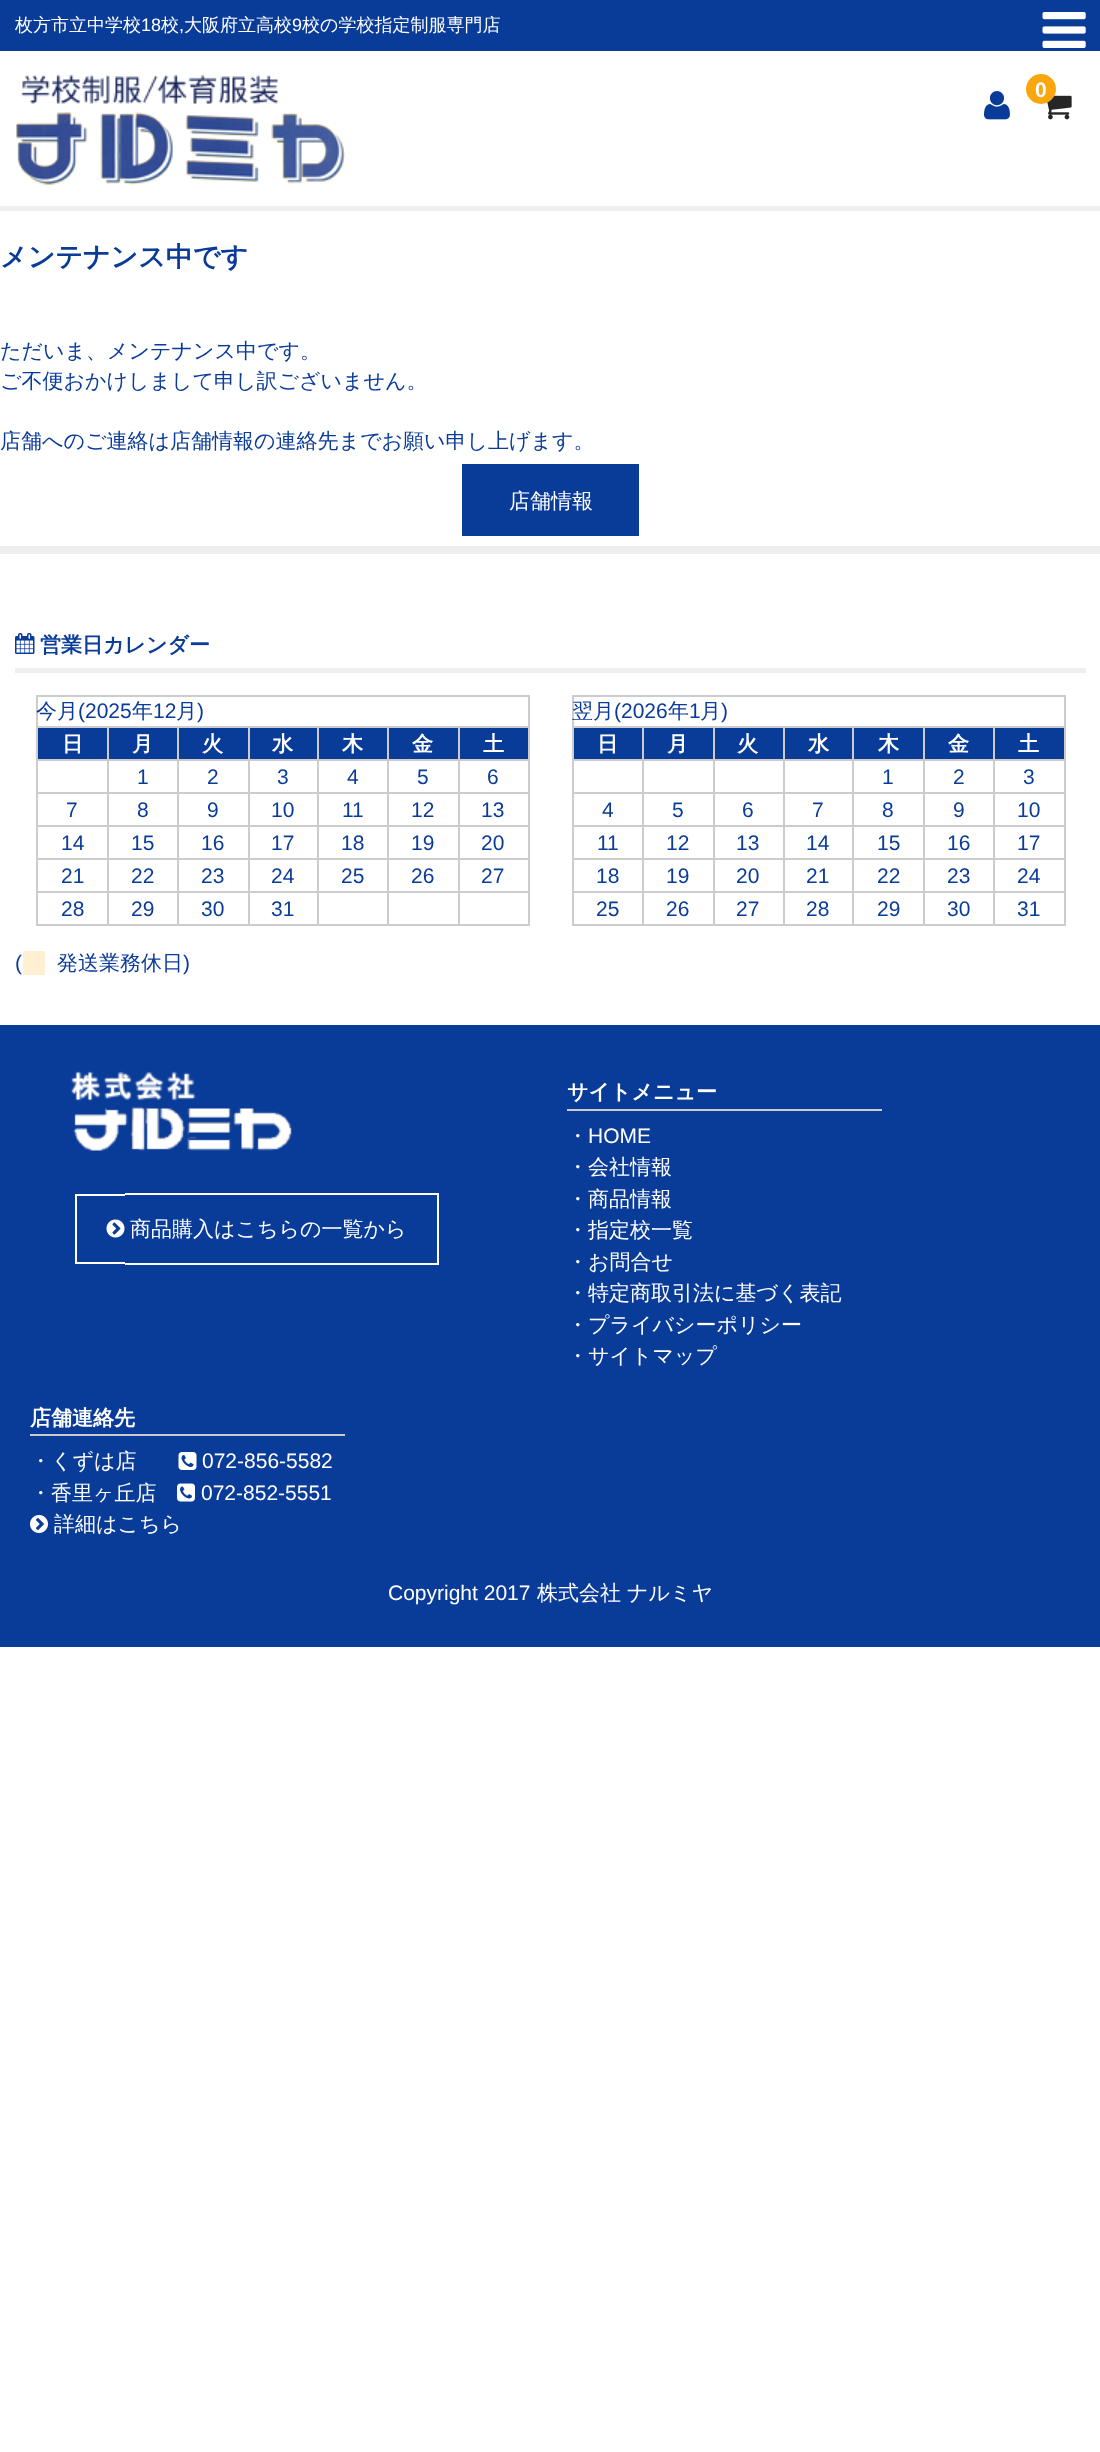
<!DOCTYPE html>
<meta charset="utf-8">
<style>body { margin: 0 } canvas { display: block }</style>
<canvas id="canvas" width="1100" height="2452"></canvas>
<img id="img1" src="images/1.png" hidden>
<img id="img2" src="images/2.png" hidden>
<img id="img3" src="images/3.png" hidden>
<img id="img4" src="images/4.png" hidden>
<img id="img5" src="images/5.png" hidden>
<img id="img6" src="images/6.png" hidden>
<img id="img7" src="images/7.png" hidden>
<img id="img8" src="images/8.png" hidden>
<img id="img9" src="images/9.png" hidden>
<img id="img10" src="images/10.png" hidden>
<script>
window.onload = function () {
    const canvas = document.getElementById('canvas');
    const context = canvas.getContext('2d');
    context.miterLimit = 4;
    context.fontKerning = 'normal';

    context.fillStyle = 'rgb(255, 255, 255)';
    context.fillRect(0, 0, 1100, 2452);
    context.fillStyle = 'rgb(239, 239, 239)';
    context.fillRect(0, 206, 1100, 5);
    context.fillStyle = 'rgb(9, 59, 153)';
    context.fillRect(0, 0, 1100, 51);
    context.drawImage(document.getElementById('img1'), 16, 74, 330, 111);
    context.drawImage(document.getElementById('img2'), 984, 91, 26, 29);
    context.drawImage(document.getElementById('img3'), 1047, 95, 25, 25);
    context.fillStyle = 'rgb(251, 166, 13)';
    context.beginPath();
    context.arc(1041, 89, 15, 0, 2 * Math.PI);
    context.fill();
    context.drawImage(document.getElementById('img4'), 1042, 12, 44, 36);
    context.fillStyle = 'rgb(9, 59, 153)';
    context.fillRect(462, 464, 177, 72);
    context.fillStyle = 'rgb(238, 238, 238)';
    context.fillRect(0, 546, 1100, 8);
    context.fillRect(15, 668, 1071, 5);
    context.drawImage(document.getElementById('img5'), 15, 633, 20, 21);
    context.fillStyle = 'rgb(204, 204, 204)';
    context.fillRect(36, 695, 494, 2);
    context.fillRect(528, 695, 2, 231);
    context.fillRect(36, 924, 494, 2);
    context.fillRect(36, 695, 2, 231);
    context.fillStyle = 'rgb(9, 59, 153)';
    context.fillRect(38, 728, 69, 31);
    context.fillStyle = 'rgb(204, 204, 204)';
    context.fillRect(458, 726, 72, 2);
    context.fillRect(458, 759, 72, 2);
    context.fillRect(458, 792, 72, 2);
    context.fillRect(458, 825, 72, 2);
    context.fillRect(458, 858, 72, 2);
    context.fillRect(458, 891, 72, 2);
    context.fillRect(458, 891, 2, 35);
    context.fillRect(387, 891, 72, 2);
    context.fillRect(458, 858, 2, 35);
    context.fillRect(387, 858, 72, 2);
    context.fillRect(458, 825, 2, 35);
    context.fillRect(387, 825, 72, 2);
    context.fillRect(458, 792, 2, 35);
    context.fillRect(387, 792, 72, 2);
    context.fillRect(458, 759, 2, 35);
    context.fillRect(387, 759, 72, 2);
    context.fillRect(458, 726, 2, 35);
    context.fillRect(387, 726, 72, 2);
    context.fillRect(387, 891, 2, 35);
    context.fillRect(317, 891, 72, 2);
    context.fillRect(387, 858, 2, 35);
    context.fillRect(317, 858, 72, 2);
    context.fillRect(387, 825, 2, 35);
    context.fillRect(317, 825, 72, 2);
    context.fillRect(387, 792, 2, 35);
    context.fillRect(317, 792, 72, 2);
    context.fillRect(387, 759, 2, 35);
    context.fillRect(317, 759, 72, 2);
    context.fillRect(387, 726, 2, 35);
    context.fillRect(317, 726, 72, 2);
    context.fillRect(317, 891, 2, 35);
    context.fillRect(248, 891, 70, 2);
    context.fillRect(317, 858, 2, 35);
    context.fillRect(248, 858, 70, 2);
    context.fillRect(317, 825, 2, 35);
    context.fillRect(248, 825, 70, 2);
    context.fillRect(317, 792, 2, 35);
    context.fillRect(248, 792, 70, 2);
    context.fillRect(317, 759, 2, 35);
    context.fillRect(248, 759, 70, 2);
    context.fillRect(317, 726, 2, 35);
    context.fillRect(248, 726, 70, 2);
    context.fillRect(248, 891, 2, 35);
    context.fillRect(177, 891, 72, 2);
    context.fillRect(248, 858, 2, 35);
    context.fillRect(177, 858, 72, 2);
    context.fillRect(248, 825, 2, 35);
    context.fillRect(177, 825, 72, 2);
    context.fillRect(248, 792, 2, 35);
    context.fillRect(177, 792, 72, 2);
    context.fillRect(248, 759, 2, 35);
    context.fillRect(177, 759, 72, 2);
    context.fillRect(248, 726, 2, 35);
    context.fillRect(177, 726, 72, 2);
    context.fillRect(177, 891, 2, 35);
    context.fillRect(107, 891, 72, 2);
    context.fillRect(177, 858, 2, 35);
    context.fillRect(107, 858, 72, 2);
    context.fillRect(177, 825, 2, 35);
    context.fillRect(107, 825, 72, 2);
    context.fillRect(177, 792, 2, 35);
    context.fillRect(107, 792, 72, 2);
    context.fillRect(177, 759, 2, 35);
    context.fillRect(107, 759, 72, 2);
    context.fillRect(177, 726, 2, 35);
    context.fillRect(107, 726, 72, 2);
    context.fillRect(107, 891, 2, 35);
    context.fillRect(36, 891, 72, 2);
    context.fillRect(107, 858, 2, 35);
    context.fillRect(36, 858, 72, 2);
    context.fillRect(107, 825, 2, 35);
    context.fillRect(36, 825, 72, 2);
    context.fillRect(107, 792, 2, 35);
    context.fillRect(36, 792, 72, 2);
    context.fillRect(107, 759, 2, 35);
    context.fillRect(36, 759, 72, 2);
    context.fillRect(107, 726, 2, 35);
    context.fillRect(36, 726, 72, 2);
    context.fillStyle = 'rgb(9, 59, 153)';
    context.fillRect(109, 728, 68, 31);
    context.fillRect(179, 728, 69, 31);
    context.fillRect(250, 728, 67, 31);
    context.fillRect(319, 728, 68, 31);
    context.fillRect(389, 728, 69, 31);
    context.fillRect(460, 728, 68, 31);
    context.fillStyle = 'rgb(204, 204, 204)';
    context.fillRect(572, 695, 493, 2);
    context.fillRect(1064, 695, 2, 231);
    context.fillRect(572, 924, 493, 2);
    context.fillRect(572, 695, 2, 231);
    context.fillStyle = 'rgb(9, 59, 153)';
    context.fillRect(574, 728, 68, 31);
    context.fillStyle = 'rgb(204, 204, 204)';
    context.fillRect(993, 726, 72, 2);
    context.fillRect(993, 759, 72, 2);
    context.fillRect(993, 792, 72, 2);
    context.fillRect(993, 825, 72, 2);
    context.fillRect(993, 858, 72, 2);
    context.fillRect(993, 891, 72, 2);
    context.fillRect(993, 891, 2, 35);
    context.fillRect(923, 891, 72, 2);
    context.fillRect(993, 858, 2, 35);
    context.fillRect(923, 858, 72, 2);
    context.fillRect(993, 825, 2, 35);
    context.fillRect(923, 825, 72, 2);
    context.fillRect(993, 792, 2, 35);
    context.fillRect(923, 792, 72, 2);
    context.fillRect(993, 759, 2, 35);
    context.fillRect(923, 759, 72, 2);
    context.fillRect(993, 726, 2, 35);
    context.fillRect(923, 726, 72, 2);
    context.fillRect(923, 891, 2, 35);
    context.fillRect(852, 891, 72, 2);
    context.fillRect(923, 858, 2, 35);
    context.fillRect(852, 858, 72, 2);
    context.fillRect(923, 825, 2, 35);
    context.fillRect(852, 825, 72, 2);
    context.fillRect(923, 792, 2, 35);
    context.fillRect(852, 792, 72, 2);
    context.fillRect(923, 759, 2, 35);
    context.fillRect(852, 759, 72, 2);
    context.fillRect(923, 726, 2, 35);
    context.fillRect(852, 726, 72, 2);
    context.fillRect(852, 891, 2, 35);
    context.fillRect(783, 891, 71, 2);
    context.fillRect(852, 858, 2, 35);
    context.fillRect(783, 858, 71, 2);
    context.fillRect(852, 825, 2, 35);
    context.fillRect(783, 825, 71, 2);
    context.fillRect(852, 792, 2, 35);
    context.fillRect(783, 792, 71, 2);
    context.fillRect(852, 759, 2, 35);
    context.fillRect(783, 759, 71, 2);
    context.fillRect(852, 726, 2, 35);
    context.fillRect(783, 726, 71, 2);
    context.fillRect(783, 891, 2, 35);
    context.fillRect(713, 891, 72, 2);
    context.fillRect(783, 858, 2, 35);
    context.fillRect(713, 858, 72, 2);
    context.fillRect(783, 825, 2, 35);
    context.fillRect(713, 825, 72, 2);
    context.fillRect(783, 792, 2, 35);
    context.fillRect(713, 792, 72, 2);
    context.fillRect(783, 759, 2, 35);
    context.fillRect(713, 759, 72, 2);
    context.fillRect(783, 726, 2, 35);
    context.fillRect(713, 726, 72, 2);
    context.fillRect(713, 891, 2, 35);
    context.fillRect(642, 891, 72, 2);
    context.fillRect(713, 858, 2, 35);
    context.fillRect(642, 858, 72, 2);
    context.fillRect(713, 825, 2, 35);
    context.fillRect(642, 825, 72, 2);
    context.fillRect(713, 792, 2, 35);
    context.fillRect(642, 792, 72, 2);
    context.fillRect(713, 759, 2, 35);
    context.fillRect(642, 759, 72, 2);
    context.fillRect(713, 726, 2, 35);
    context.fillRect(642, 726, 72, 2);
    context.fillRect(642, 891, 2, 35);
    context.fillRect(572, 891, 72, 2);
    context.fillRect(642, 858, 2, 35);
    context.fillRect(572, 858, 72, 2);
    context.fillRect(642, 825, 2, 35);
    context.fillRect(572, 825, 72, 2);
    context.fillRect(642, 792, 2, 35);
    context.fillRect(572, 792, 72, 2);
    context.fillRect(642, 759, 2, 35);
    context.fillRect(572, 759, 72, 2);
    context.fillRect(642, 726, 2, 35);
    context.fillRect(572, 726, 72, 2);
    context.fillStyle = 'rgb(9, 59, 153)';
    context.fillRect(644, 728, 69, 31);
    context.fillRect(715, 728, 68, 31);
    context.fillRect(785, 728, 67, 31);
    context.fillRect(854, 728, 69, 31);
    context.fillRect(925, 728, 68, 31);
    context.fillRect(995, 728, 69, 31);
    context.fillStyle = 'rgb(255, 240, 209)';
    context.fillRect(23, 951, 22, 24);
    context.fillStyle = 'rgb(9, 59, 153)';
    context.fillRect(0, 1025, 1100, 622);
    context.drawImage(document.getElementById('img6'), 70, 1071, 222, 80);
    context.fillStyle = 'rgb(255, 255, 255)';
    context.fillRect(75, 1194, 50, 2);
    context.fillRect(75, 1262, 50, 2);
    context.fillRect(75, 1194, 2, 69);
    context.fillRect(125, 1193, 313, 2);
    context.fillRect(437, 1193, 2, 72);
    context.fillRect(125, 1263, 313, 2);
    context.drawImage(document.getElementById('img7'), 106, 1219, 19, 19);
    context.fillStyle = 'rgb(204, 204, 204)';
    context.fillRect(567, 1109, 315, 2);
    context.fillRect(30, 1434, 315, 2);
    context.drawImage(document.getElementById('img8'), 178, 1452, 19, 18);
    context.drawImage(document.getElementById('img9'), 177, 1483, 18, 19);
    context.drawImage(document.getElementById('img10'), 30, 1515, 18, 18);
    context.font = '500 18px WenQuanYi Zen Hei';
    context.fillStyle = 'rgb(255, 255, 255)';
    context.fillText('枚方市立中学校', 15, 31);
    context.font = '18px Liberation Sans';
    context.fillText('18', 141, 31);
    context.font = '500 18px WenQuanYi Zen Hei';
    context.fillText('校', 161, 31);
    context.font = '18px Liberation Sans';
    context.fillText(',', 179, 31);
    context.font = '500 18px WenQuanYi Zen Hei';
    context.fillText('大阪府立高校', 184, 31);
    context.font = '18px Liberation Sans';
    context.fillText('9', 292, 31);
    context.font = '500 18px WenQuanYi Zen Hei';
    context.fillText('校の学校指定制服専門店', 302, 31);
    context.font = 'bold 21px Liberation Sans';
    context.fillText('0', 1035, 97);
    context.font = 'bold 27px WenQuanYi Zen Hei';
    context.fillStyle = 'rgb(9, 59, 153)';
    context.fillText('メンテナンス中です', 0, 266);
    context.font = '500 21px WenQuanYi Zen Hei';
    context.fillText('ただいま、メンテナンス中です。', 0, 358);
    context.fillText('ご不便おかけしまして申し訳ございません。', 0, 388);
    context.fillText('店舗へのご連絡は店舗情報の連絡先までお願い申し上げます。', 0, 448);
    context.fillStyle = 'rgb(255, 255, 255)';
    context.fillText('店舗情報', 509, 508);
    context.font = 'bold 21px WenQuanYi Zen Hei';
    context.fillStyle = 'rgb(9, 59, 153)';
    context.fillText('営業日カレンダー', 40, 652);
    context.font = '500 21px WenQuanYi Zen Hei';
    context.fillText('今月', 36, 718);
    context.font = '21px Liberation Sans';
    context.fillText('(2025', 78, 718);
    context.font = '500 21px WenQuanYi Zen Hei';
    context.fillText('年', 132, 718);
    context.font = '21px Liberation Sans';
    context.fillText('12', 153, 718);
    context.font = '500 21px WenQuanYi Zen Hei';
    context.fillText('月', 176, 718);
    context.font = '21px Liberation Sans';
    context.fillText(')', 197, 718);
    context.font = 'bold 21px WenQuanYi Zen Hei';
    context.fillStyle = 'rgb(255, 255, 255)';
    context.fillText('日', 62, 751);
    context.fillText('月', 132, 751);
    context.fillText('火', 202, 751);
    context.fillText('水', 272, 751);
    context.fillText('木', 342, 751);
    context.fillText('金', 412, 751);
    context.fillText('土', 483, 751);
    context.font = '21px Liberation Sans';
    context.fillStyle = 'rgb(9, 59, 153)';
    context.fillText('1', 137, 784);
    context.fillText('2', 207, 784);
    context.fillText('3', 277, 784);
    context.fillText('4', 347, 784);
    context.fillText('5', 417, 784);
    context.fillText('6', 487, 784);
    context.fillText('7', 66, 817);
    context.fillText('8', 137, 817);
    context.fillText('9', 207, 817);
    context.fillText('10', 271, 817);
    context.fillText('11', 342, 817);
    context.fillText('12', 411, 817);
    context.fillText('13', 481, 817);
    context.fillText('14', 61, 850);
    context.fillText('15', 131, 850);
    context.fillText('16', 201, 850);
    context.fillText('17', 271, 850);
    context.fillText('18', 341, 850);
    context.fillText('19', 411, 850);
    context.fillText('20', 481, 850);
    context.fillText('21', 61, 883);
    context.fillText('22', 131, 883);
    context.fillText('23', 201, 883);
    context.fillText('24', 271, 883);
    context.fillText('25', 341, 883);
    context.fillText('26', 411, 883);
    context.fillText('27', 481, 883);
    context.fillText('28', 61, 916);
    context.fillText('29', 131, 916);
    context.fillText('30', 201, 916);
    context.fillText('31', 271, 916);
    context.font = '500 21px WenQuanYi Zen Hei';
    context.fillText('翌月', 572, 718);
    context.font = '21px Liberation Sans';
    context.fillText('(2026', 614, 718);
    context.font = '500 21px WenQuanYi Zen Hei';
    context.fillText('年', 668, 718);
    context.font = '21px Liberation Sans';
    context.fillText('1', 689, 718);
    context.font = '500 21px WenQuanYi Zen Hei';
    context.fillText('月', 700, 718);
    context.font = '21px Liberation Sans';
    context.fillText(')', 721, 718);
    context.font = 'bold 21px WenQuanYi Zen Hei';
    context.fillStyle = 'rgb(255, 255, 255)';
    context.fillText('日', 597, 751);
    context.fillText('月', 667, 751);
    context.fillText('火', 737, 751);
    context.fillText('水', 808, 751);
    context.fillText('木', 878, 751);
    context.fillText('金', 948, 751);
    context.fillText('土', 1018, 751);
    context.font = '21px Liberation Sans';
    context.fillStyle = 'rgb(9, 59, 153)';
    context.fillText('1', 882, 784);
    context.fillText('2', 953, 784);
    context.fillText('3', 1023, 784);
    context.fillText('4', 602, 817);
    context.fillText('5', 672, 817);
    context.fillText('6', 742, 817);
    context.fillText('7', 812, 817);
    context.fillText('8', 882, 817);
    context.fillText('9', 953, 817);
    context.fillText('10', 1017, 817);
    context.fillText('11', 597, 850);
    context.fillText('12', 666, 850);
    context.fillText('13', 736, 850);
    context.fillText('14', 806, 850);
    context.fillText('15', 877, 850);
    context.fillText('16', 947, 850);
    context.fillText('17', 1017, 850);
    context.fillText('18', 596, 883);
    context.fillText('19', 666, 883);
    context.fillText('20', 736, 883);
    context.fillText('21', 806, 883);
    context.fillText('22', 877, 883);
    context.fillText('23', 947, 883);
    context.fillText('24', 1017, 883);
    context.fillText('25', 596, 916);
    context.fillText('26', 666, 916);
    context.fillText('27', 736, 916);
    context.fillText('28', 806, 916);
    context.fillText('29', 877, 916);
    context.fillText('30', 947, 916);
    context.fillText('31', 1017, 916);
    context.fillText('(', 15, 970);
    context.font = '500 21px WenQuanYi Zen Hei';
    context.fillText('発送業務休日', 57, 970);
    context.font = '21px Liberation Sans';
    context.fillText(')', 183, 970);
    context.font = '500 21px WenQuanYi Zen Hei';
    context.fillStyle = 'rgb(255, 255, 255)';
    context.fillText('商品購入はこちらの一覧から', 130, 1236);
    context.font = 'bold 21px WenQuanYi Zen Hei';
    context.fillText('サイトメニュー', 567, 1099);
    context.font = '500 21px WenQuanYi Zen Hei';
    context.fillText('・', 567, 1143);
    context.font = '21px Liberation Sans';
    context.fillText('HOME', 588, 1143);
    context.font = '500 21px WenQuanYi Zen Hei';
    context.fillText('・会社情報', 567, 1174);
    context.fillText('・商品情報', 567, 1206);
    context.fillText('・指定校一覧', 567, 1237);
    context.fillText('・お問合せ', 567, 1269);
    context.fillText('・特定商取引法に基づく表記', 567, 1300);
    context.fillText('・プライバシーポリシー', 567, 1332);
    context.fillText('・サイトマップ', 567, 1363);
    context.font = 'bold 21px WenQuanYi Zen Hei';
    context.fillText('店舗連絡先', 30, 1425);
    context.font = '500 21px WenQuanYi Zen Hei';
    context.fillText('・くずは店', 30, 1468);
    context.font = '21px Liberation Sans';
    context.fillText('072-856-5582', 202, 1468);
    context.font = '500 21px WenQuanYi Zen Hei';
    context.fillText('・香里ヶ丘店', 30, 1500);
    context.font = '21px Liberation Sans';
    context.fillText('072-852-5551', 201, 1500);
    context.font = '500 21px WenQuanYi Zen Hei';
    context.fillText('詳細はこちら', 54, 1531);
    context.font = '21px Liberation Sans';
    context.fillText('Copyright 2017', 388, 1600);
    context.font = '500 21px WenQuanYi Zen Hei';
    context.fillText('株式会社', 537, 1600);
    context.fillText('ナルミヤ', 627, 1600);
};
</script>
